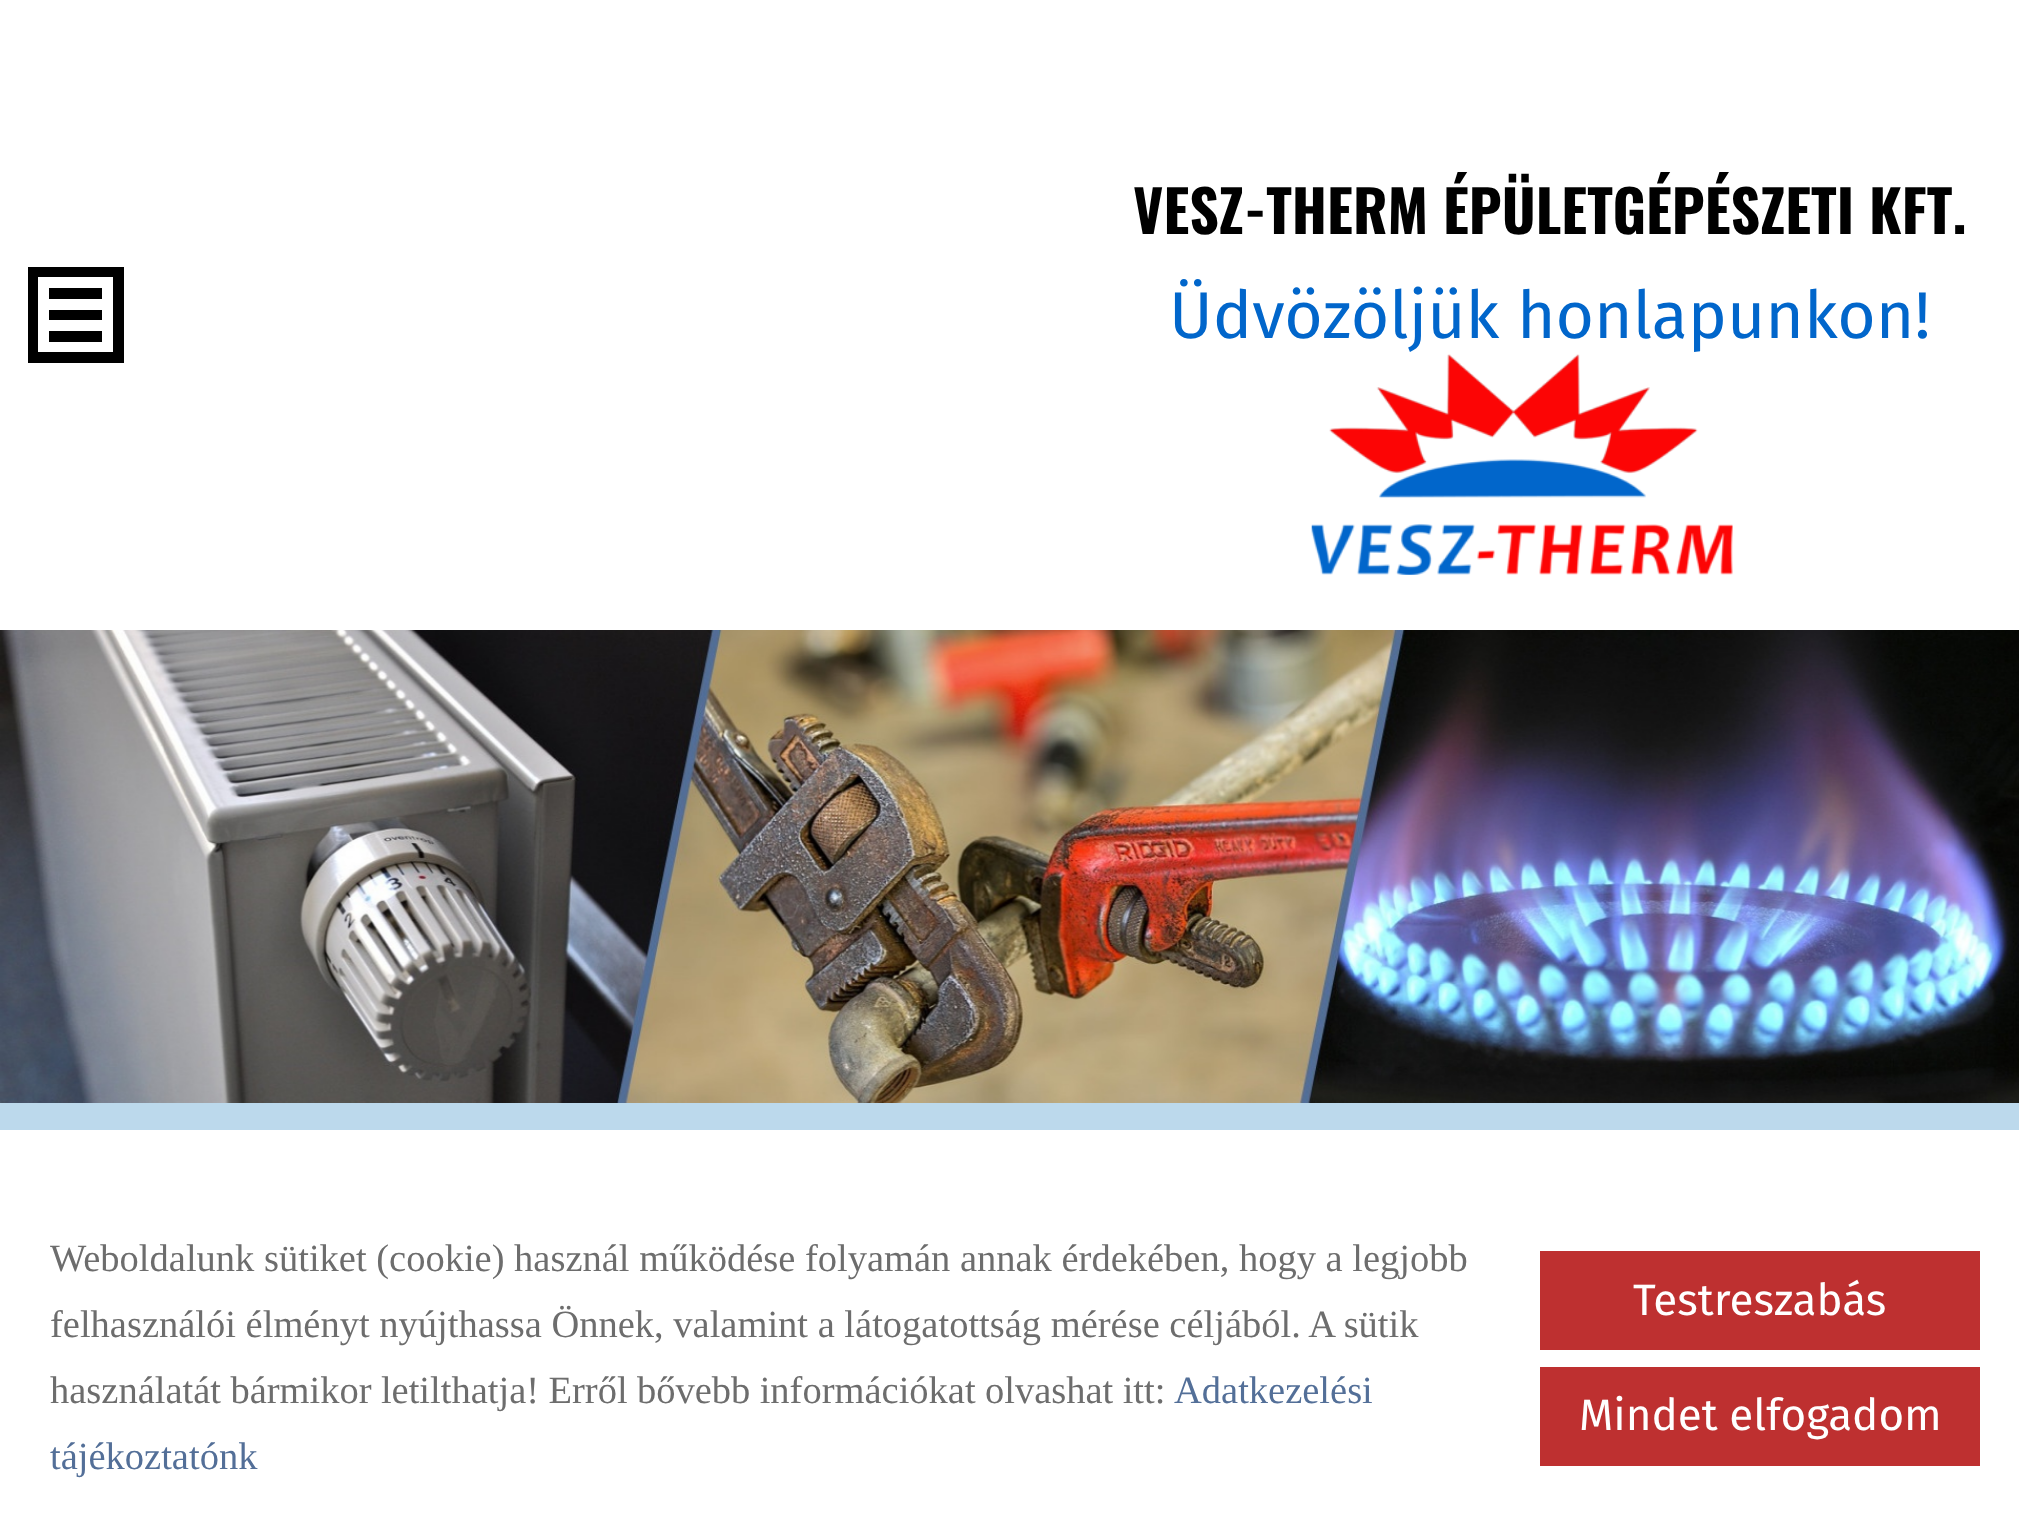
<!DOCTYPE html>
<meta charset="utf-8">
<style>body { margin: 0 } canvas { display: block }</style>
<canvas id="canvas" width="2019" height="1526"></canvas>
<img id="img1" src="images/1.png" hidden>
<img id="img2" src="images/2.png" hidden>
<script>
window.onload = function () {
    const canvas = document.getElementById('canvas');
    const context = canvas.getContext('2d');
    context.miterLimit = 4;
    context.fontKerning = 'normal';

    context.fillStyle = 'rgb(188, 217, 236)';
    context.fillRect(0, 0, 2019, 1526);
    context.fillStyle = 'rgb(255, 255, 255)';
    context.fillRect(0, 0, 2019, 630);
    context.fillStyle = 'rgb(0, 0, 0)';
    context.beginPath();
    context.moveTo(49, 310);
    context.lineTo(49, 320);
    context.lineTo(102, 320);
    context.lineTo(102, 310);
    context.closePath();
    context.moveTo(49, 331);
    context.lineTo(49, 342);
    context.lineTo(102, 342);
    context.lineTo(102, 331);
    context.closePath();
    context.moveTo(49, 288);
    context.lineTo(49, 299);
    context.lineTo(102, 299);
    context.lineTo(102, 288);
    context.closePath();
    context.moveTo(28, 267);
    context.lineTo(124, 267);
    context.lineTo(124, 363);
    context.lineTo(28, 363);
    context.closePath();
    context.moveTo(113, 352);
    context.lineTo(113, 277);
    context.lineTo(38, 277);
    context.lineTo(38, 352);
    context.closePath();
    context.fill();
    context.drawImage(document.getElementById('img1'), 1311, 354, 422, 221);
    context.drawImage(document.getElementById('img2'), 0, 630, 2019, 473);
    context.fillStyle = 'rgb(255, 255, 255)';
    context.fillRect(0, 1130, 2019, 396);
    context.fillStyle = 'rgb(190, 48, 48)';
    context.fillRect(1540, 1251, 440, 99);
    context.fillRect(1540, 1367, 440, 99);
    context.font = 'bold 57.75px Oswald';
    context.fillStyle = 'rgb(0, 0, 0)';
    context.fillText('VESZ-THERM ÉPÜLETGÉPÉSZETI KFT.', 1133, 234);
    context.font = '66px Fira Sans';
    context.fillStyle = 'rgb(1, 102, 203)';
    context.fillText('Üdvözöljük honlapunkon!', 1169, 338);
    context.font = '38.5px Liberation Serif';
    context.fillStyle = 'rgb(109, 109, 109)';
    context.fillText('Weboldalunk sütiket (cookie) használ működése folyamán annak érdekében, hogy a legjobb', 50, 1271);
    context.fillText('felhasználói élményt nyújthassa Önnek, valamint a látogatottság mérése céljából. A sütik', 50, 1337);
    context.wordSpacing = '-0.25px';
    context.fillText('használatát bármikor letilthatja! Erről bővebb információkat olvashat itt:', 50, 1403);
    context.wordSpacing = '0px';
    context.fillStyle = 'rgb(83, 111, 152)';
    context.fillText('Adatkezelési', 1174, 1403);
    context.fillText('tájékoztatónk', 50, 1469);
    context.font = '44px Fira Sans';
    context.fillStyle = 'rgb(255, 255, 255)';
    context.fillText('Testreszabás', 1633, 1315);
    context.fillText('Mindet elfogadom', 1579, 1430);
};
</script>
